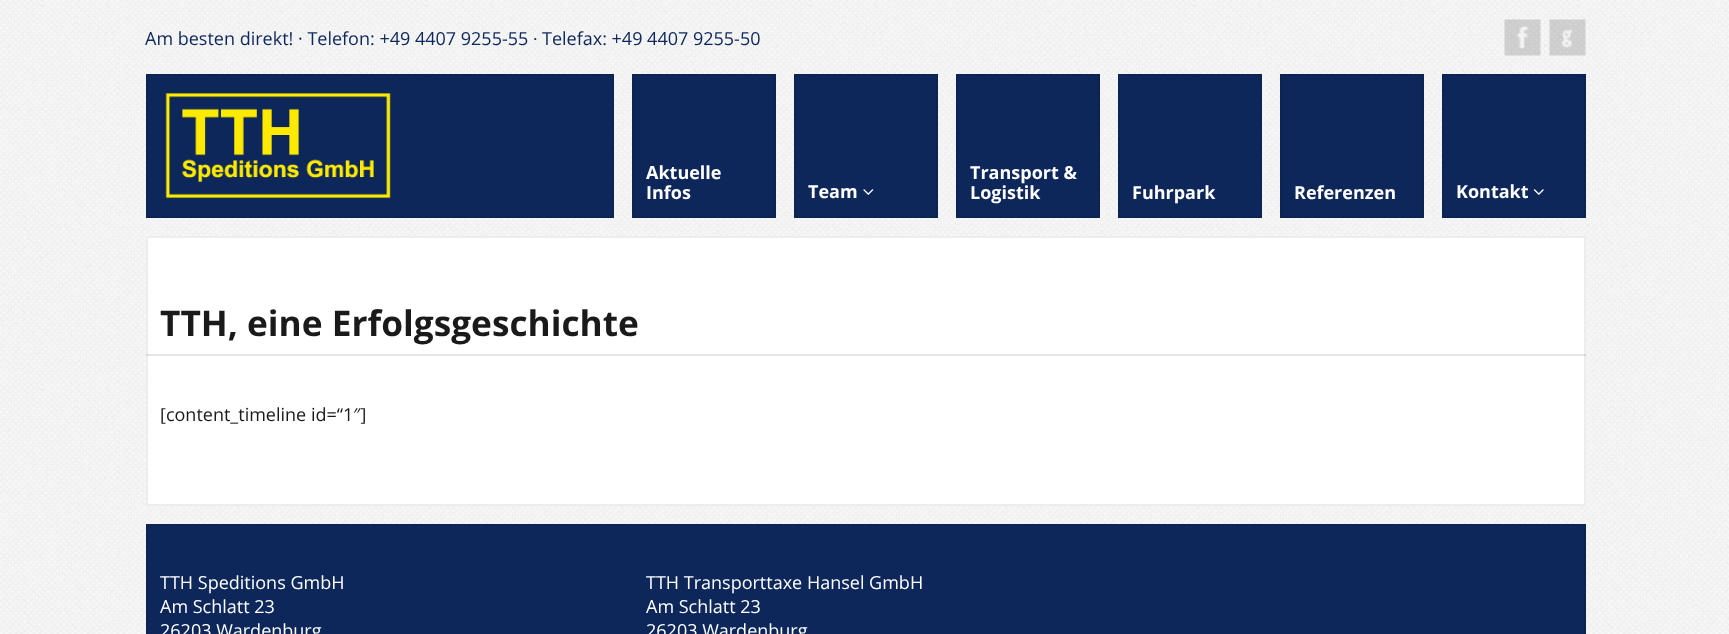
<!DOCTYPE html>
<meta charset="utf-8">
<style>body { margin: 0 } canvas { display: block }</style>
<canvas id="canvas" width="1729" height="634"></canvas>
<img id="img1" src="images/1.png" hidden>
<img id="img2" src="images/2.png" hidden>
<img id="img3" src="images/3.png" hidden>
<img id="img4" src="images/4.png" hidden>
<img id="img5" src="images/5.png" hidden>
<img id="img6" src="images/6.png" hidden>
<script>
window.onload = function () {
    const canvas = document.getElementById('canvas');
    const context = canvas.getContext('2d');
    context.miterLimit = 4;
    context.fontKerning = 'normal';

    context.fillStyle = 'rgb(255, 255, 255)';
    context.fillRect(0, 0, 1729, 634);
    context.drawImage(document.getElementById('img1'), 0, 0, 1729, 634);
    context.drawImage(document.getElementById('img2'), 1504, 19, 37, 37);
    context.drawImage(document.getElementById('img3'), 1549, 19, 37, 37);
    context.fillStyle = 'rgb(13, 39, 90)';
    context.beginPath();
    context.rect(147, 75, 466, 142);
    context.fill();
    context.strokeStyle = 'rgb(12, 36, 84)';
    context.lineWidth = 2;
    context.stroke();
    context.drawImage(document.getElementById('img4'), 165, 93, 226, 106);
    context.beginPath();
    context.rect(633, 75, 142, 142);
    context.fill();
    context.stroke();
    context.beginPath();
    context.rect(795, 75, 142, 142);
    context.fill();
    context.stroke();
    context.drawImage(document.getElementById('img5'), 863, 189, 11, 6);
    context.beginPath();
    context.rect(957, 75, 142, 142);
    context.fill();
    context.stroke();
    context.beginPath();
    context.rect(1119, 75, 142, 142);
    context.fill();
    context.stroke();
    context.beginPath();
    context.rect(1281, 75, 142, 142);
    context.fill();
    context.stroke();
    context.beginPath();
    context.rect(1443, 75, 142, 142);
    context.fill();
    context.stroke();
    context.drawImage(document.getElementById('img6'), 1533, 189, 11, 6);
    context.fillStyle = 'rgb(255, 255, 255)';
    context.beginPath();
    context.rect(147, 237, 1438, 268);
    context.fill();
    context.strokeStyle = 'rgb(237, 237, 237)';
    context.stroke();
    context.fillStyle = 'rgba(0, 0, 0, 0.1)';
    context.fillRect(146, 354, 1440, 2);
    context.fillStyle = 'rgb(13, 39, 90)';
    context.beginPath();
    context.rect(147, 525, 1438, 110);
    context.fill();
    context.strokeStyle = 'rgb(12, 36, 84)';
    context.stroke();
    context.font = '18px Open Sans';
    context.fillText('Am besten direkt! · Telefon: +49 4407 9255-55', 145, 45);
    context.font = '18px Liberation Serif';
    context.fillText('∙', 533, 45);
    context.font = '18px Open Sans';
    context.fillText('Telefax: +49 4407 9255-50', 542, 45);
    context.font = 'bold 18px Open Sans';
    context.fillStyle = 'rgb(255, 255, 255)';
    context.fillText('Aktuelle', 646, 179);
    context.fillText('Infos', 646, 199);
    context.fillText('Team', 808, 198);
    context.fillText('Transport &', 970, 179);
    context.fillText('Logistik', 970, 199);
    context.fillText('Fuhrpark', 1132, 199);
    context.fillText('Referenzen', 1294, 199);
    context.fillText('Kontakt', 1456, 198);
    context.font = 'bold 35.25px Open Sans';
    context.fillStyle = 'rgb(26, 26, 26)';
    context.fillText('TTH, eine Erfolgsgeschichte', 160, 336);
    context.font = '18px Open Sans';
    context.fillText('[content_timeline id=“1″]', 160, 421);
    context.fillStyle = 'rgb(255, 255, 255)';
    context.fillText('TTH Speditions GmbH', 160, 589);
    context.fillText('Am Schlatt 23', 160, 613);
    context.fillText('26203 Wardenburg', 160, 637);
    context.fillText('TTH Transporttaxe Hansel GmbH', 646, 589);
    context.fillText('Am Schlatt 23', 646, 613);
    context.fillText('26203 Wardenburg', 646, 637);
};
</script>
